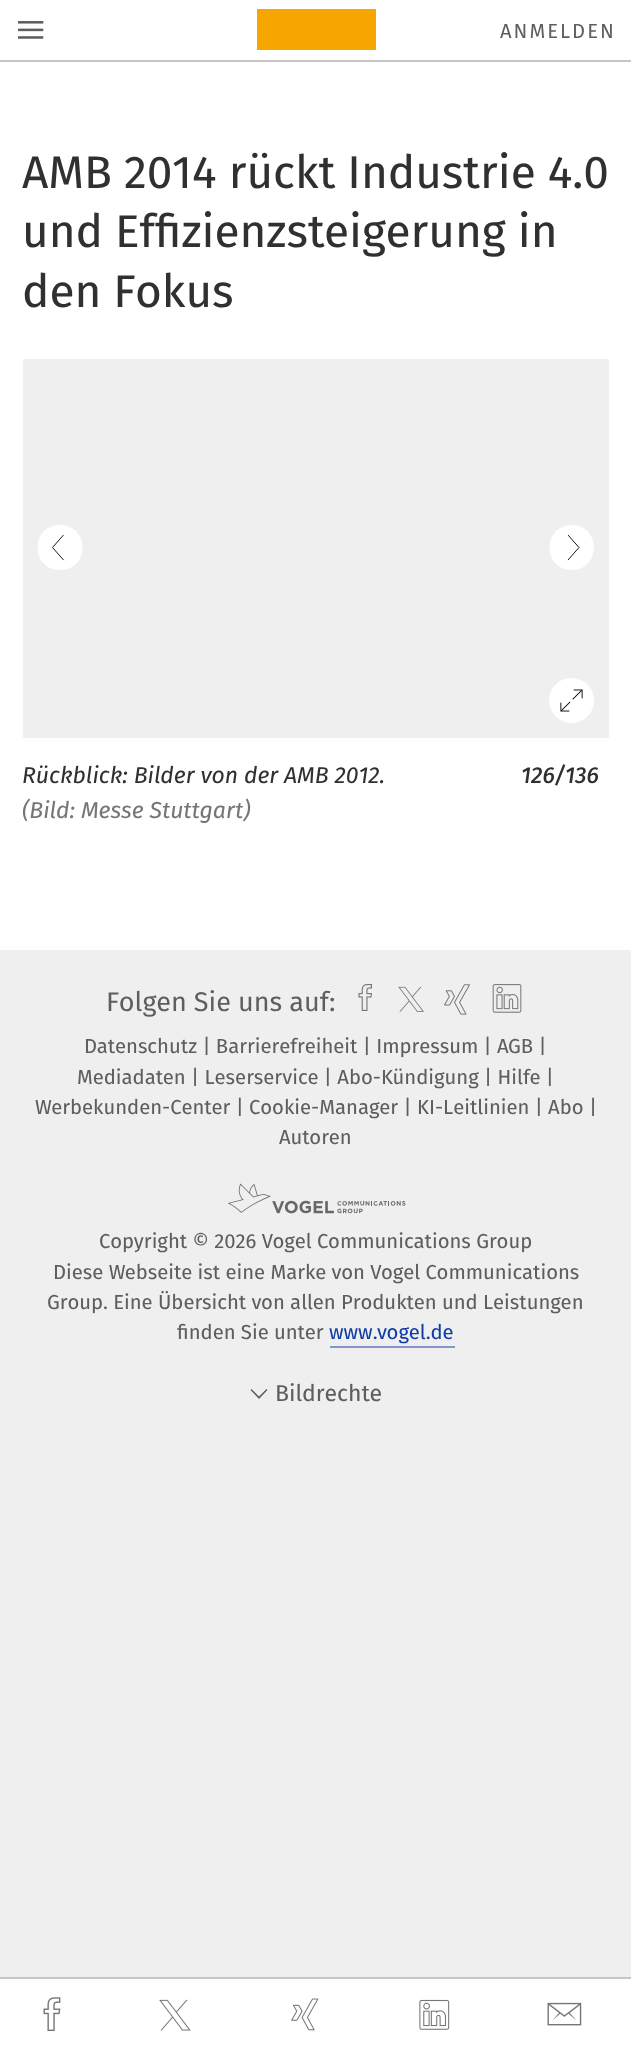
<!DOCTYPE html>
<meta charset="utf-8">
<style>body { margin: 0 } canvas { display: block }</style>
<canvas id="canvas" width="631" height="2051"></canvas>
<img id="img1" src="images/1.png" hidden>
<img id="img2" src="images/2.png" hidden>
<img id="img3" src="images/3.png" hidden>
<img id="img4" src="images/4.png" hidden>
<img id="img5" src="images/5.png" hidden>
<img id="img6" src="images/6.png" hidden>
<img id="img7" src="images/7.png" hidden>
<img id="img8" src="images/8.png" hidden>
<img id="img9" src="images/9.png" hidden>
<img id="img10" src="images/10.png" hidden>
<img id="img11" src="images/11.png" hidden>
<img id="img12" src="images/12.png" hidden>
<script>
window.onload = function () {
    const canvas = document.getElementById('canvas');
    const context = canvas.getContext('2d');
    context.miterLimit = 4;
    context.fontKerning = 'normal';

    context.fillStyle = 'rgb(239, 239, 239)';
    context.fillRect(0, 0, 631, 2051);
    context.fillStyle = 'rgb(255, 255, 255)';
    context.fillRect(0, 62, 631, 888);
    context.fillRect(0, 0, 631, 60);
    context.fillStyle = 'rgb(198, 198, 198)';
    context.fillRect(0, 60, 631, 2);
    context.drawImage(document.getElementById('img1'), 18, 21, 26, 18);
    context.fillStyle = 'rgb(247, 166, 0)';
    context.fillRect(257, 9, 119, 41);
    context.fillStyle = 'rgb(239, 239, 239)';
    context.fillRect(23, 359, 586, 379);
    context.save();
    context.beginPath();
    context.rect(38, 525, 45, 45);
    context.clip();
    context.fillStyle = 'rgb(255, 255, 255)';
    context.beginPath();
    context.moveTo(60, 570);
    context.bezierCurveTo(90, 570, 90, 525, 60, 525);
    context.bezierCurveTo(30, 525, 30, 570, 60, 570);
    context.fill();
    context.restore();
    context.beginPath();
    context.moveTo(63.5, 535);
    context.lineTo(52.5, 547.5);
    context.lineTo(63.5, 560);
    context.strokeStyle = 'rgb(0, 0, 0)';
    context.lineWidth = 0.9;
    context.stroke();
    context.fillStyle = 'rgb(255, 255, 255)';
    context.beginPath();
    context.moveTo(572, 525);
    context.bezierCurveTo(542, 525, 542, 570, 572, 570);
    context.bezierCurveTo(601, 570, 601, 525, 572, 525);
    context.fill();
    context.beginPath();
    context.moveTo(568, 560);
    context.lineTo(579, 547.5);
    context.lineTo(568, 535);
    context.stroke();
    context.drawImage(document.getElementById('img2'), 549, 678, 45, 45);
    context.fillRect(0, 1979, 631, 72);
    context.fillStyle = 'rgb(198, 198, 198)';
    context.fillRect(0, 1977, 631, 2);
    context.drawImage(document.getElementById('img3'), 43, 1997, 18, 34);
    context.drawImage(document.getElementById('img4'), 159, 1999, 32, 32);
    context.drawImage(document.getElementById('img5'), 291, 1998, 28, 33);
    context.drawImage(document.getElementById('img6'), 419, 1999, 31, 31);
    context.drawImage(document.getElementById('img7'), 547, 2002, 35, 24);
    context.drawImage(document.getElementById('img8'), 358, 984, 14, 27);
    context.drawImage(document.getElementById('img9'), 398, 986, 26, 26);
    context.drawImage(document.getElementById('img10'), 444, 984, 26, 31);
    context.drawImage(document.getElementById('img11'), 492, 984, 30, 29);
    context.drawImage(document.getElementById('img12'), 227, 1183, 179, 31);
    context.fillStyle = 'rgb(129, 150, 203)';
    context.fillRect(330, 1346, 125, 2);
    context.fillStyle = 'rgb(94, 94, 94)';
    context.beginPath();
    context.moveTo(266.5, 1389);
    context.lineTo(267.5, 1390);
    context.lineTo(259, 1399);
    context.lineTo(250.5, 1390);
    context.lineTo(251.5, 1389);
    context.lineTo(259, 1396.5);
    context.closePath();
    context.fill();
    context.letterSpacing = '2px';
    context.font = '20.25px "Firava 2"';
    context.fillText('ANMELDEN', 500, 38);
    context.letterSpacing = '0px';
    context.font = '45.9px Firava';
    context.fillStyle = 'rgb(48, 48, 48)';
    context.fillText('AMB 2014 rückt Industrie 4.0', 22, 188);
    context.fillText('und Effizienzsteigerung in', 22, 247);
    context.fillText('den Fokus', 22, 307);
    context.font = 'italic 23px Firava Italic';
    context.fillText('Rückblick: Bilder von der AMB 2012.', 22, 783);
    context.fillStyle = 'rgb(118, 118, 118)';
    context.fillText('(Bild: Messe Stuttgart)', 22, 818);
    context.font = 'italic 500 23px Firava Italic';
    context.fillStyle = 'rgb(48, 48, 48)';
    context.fillText('126/136', 521, 783);
    context.font = '27px "Firava 2"';
    context.fillStyle = 'rgb(94, 94, 94)';
    context.fillText('Folgen Sie uns auf:', 106, 1011);
    context.font = '20.25px Firava';
    context.fillText('Datenschutz | Barrierefreiheit | Impressum | AGB |', 84, 1053);
    context.fillText('Mediadaten | Leserservice | Abo-Kündigung | Hilfe |', 77, 1084);
    context.fillText('Werbekunden-Center | Cookie-Manager | KI-Leitlinien | Abo |', 35, 1114);
    context.fillText('Autoren', 279, 1144);
    context.fillText('Copyright © 2026 Vogel Communications Group', 99, 1248);
    context.fillText('Diese Webseite ist eine Marke von Vogel Communications', 53, 1279);
    context.fillText('Group. Eine Übersicht von allen Produkten und Leistungen', 47, 1309);
    context.fillText('finden Sie unter', 177, 1339);
    context.fillStyle = 'rgb(18, 61, 167)';
    context.fillText('www.vogel.de', 329, 1339);
    context.font = '23px Firava';
    context.fillStyle = 'rgb(94, 94, 94)';
    context.fillText('Bildrechte', 275, 1401);
};
</script>
